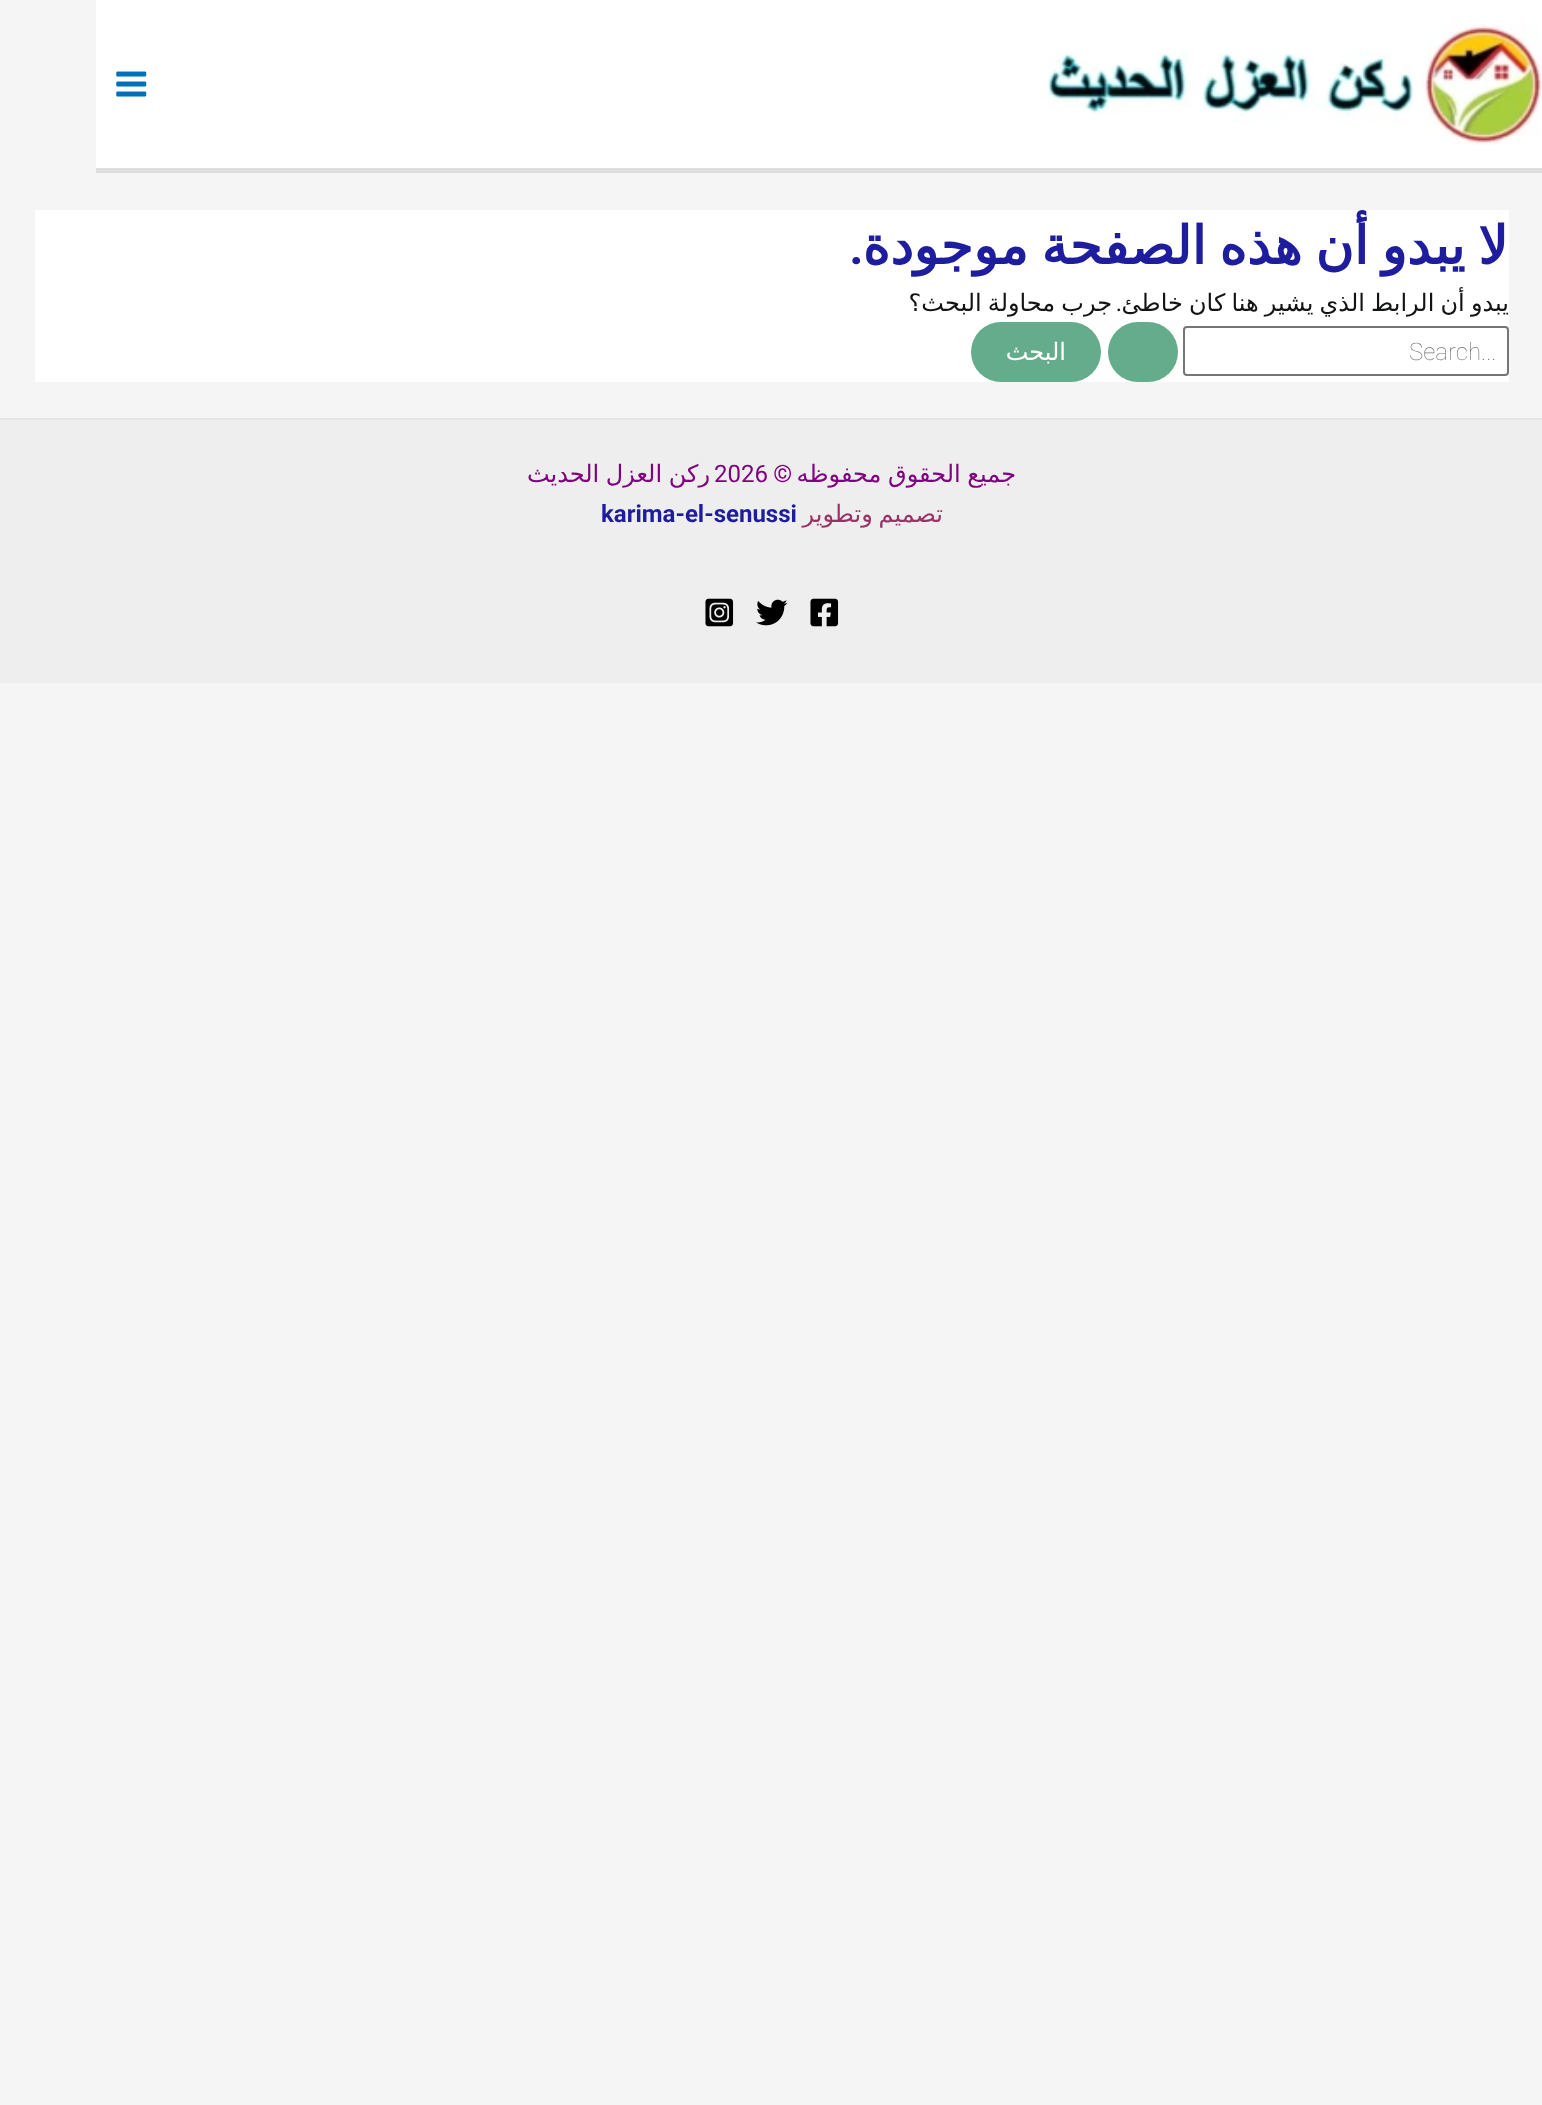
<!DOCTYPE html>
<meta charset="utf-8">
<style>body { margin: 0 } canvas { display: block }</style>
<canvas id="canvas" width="1542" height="2105"></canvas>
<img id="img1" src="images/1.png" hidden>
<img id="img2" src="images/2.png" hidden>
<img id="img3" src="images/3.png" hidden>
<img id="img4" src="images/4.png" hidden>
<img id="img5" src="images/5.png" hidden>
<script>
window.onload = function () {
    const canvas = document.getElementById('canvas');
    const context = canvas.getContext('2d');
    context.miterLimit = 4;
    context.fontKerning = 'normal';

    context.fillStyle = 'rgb(245, 245, 245)';
    context.fillRect(0, 0, 1542, 2105);
    context.fillStyle = 'rgb(255, 255, 255)';
    context.fillRect(96, 0, 1446, 168);
    context.fillStyle = 'rgb(221, 221, 221)';
    context.fillRect(96, 168, 1446, 5);
    context.drawImage(document.getElementById('img1'), 1047, 24, 495, 121);
    context.drawImage(document.getElementById('img2'), 116, 71, 31, 26);
    context.fillStyle = 'rgb(255, 255, 255)';
    context.fillRect(35, 210, 1474, 172);
    context.beginPath();
    context.roundRect(1184, 327, 324, 48, 3);
    context.strokeStyle = 'rgb(118, 118, 118)';
    context.lineWidth = 2;
    context.stroke();
    context.fillStyle = 'rgb(101, 172, 141)';
    context.beginPath();
    context.roundRect(1108, 322, 70, 60, 30);
    context.fill();
    context.beginPath();
    context.roundRect(971, 322, 130, 60, 30);
    context.fill();
    context.fillStyle = 'rgb(238, 238, 238)';
    context.fillRect(0, 420, 1542, 263);
    context.fillStyle = 'rgb(229, 229, 229)';
    context.fillRect(0, 418, 1542, 2);
    context.drawImage(document.getElementById('img3'), 810, 598, 29, 29);
    context.drawImage(document.getElementById('img4'), 756, 599, 32, 27);
    context.drawImage(document.getElementById('img5'), 705, 598, 29, 29);
    context.wordSpacing = '-3.5px';
    context.direction = 'rtl';
    context.font = 'bold 52.5px DejaVu Sans';
    context.fillStyle = 'rgb(29, 29, 158)';
    context.fillText('لا يبدو أن هذه الصفحة موجودة', 1508, 264);
    context.wordSpacing = '0px';
    context.font = '600 52.5px Roboto';
    context.fillText('.', 864, 264);
    context.wordSpacing = '-1.5px';
    context.font = '24px DejaVu Sans';
    context.fillStyle = 'rgb(18, 19, 19)';
    context.fillText('يبدو أن الرابط الذي يشير هنا كان خاطئ', 1509, 311);
    context.wordSpacing = '0px';
    context.font = '24px Roboto';
    context.fillText('.', 1122, 311);
    context.wordSpacing = '-1.5px';
    context.font = '24px DejaVu Sans';
    context.fillText('جرب محاولة البحث؟', 1112, 311);
    context.wordSpacing = '0px';
    context.direction = 'ltr';
    context.font = '100 24px Roboto';
    context.fillStyle = 'rgb(117, 117, 117)';
    context.fillText('Search...', 1409, 360);
    context.direction = 'rtl';
    context.font = '24px DejaVu Sans';
    context.fillStyle = 'rgb(255, 255, 255)';
    context.fillText('البحث', 1066, 360);
    context.wordSpacing = '-1px';
    context.fillStyle = 'rgb(128, 0, 128)';
    context.fillText('جميع الحقوق محفوظه', 1016, 482);
    context.wordSpacing = '0px';
    context.font = '24px Roboto';
    context.fillText('©', 792, 482);
    context.direction = 'ltr';
    context.fillText('2026', 714, 482);
    context.wordSpacing = '-1px';
    context.direction = 'rtl';
    context.font = '24px DejaVu Sans';
    context.fillText('ركن العزل الحديث', 710, 482);
    context.wordSpacing = '-2px';
    context.fillStyle = 'rgb(153, 51, 102)';
    context.fillText('تصميم وتطوير', 943, 522);
    context.wordSpacing = '0px';
    context.direction = 'ltr';
    context.font = 'bold 24px Roboto';
    context.fillStyle = 'rgb(29, 29, 158)';
    context.fillText('karima-el-senussi', 601, 522);
};
</script>
